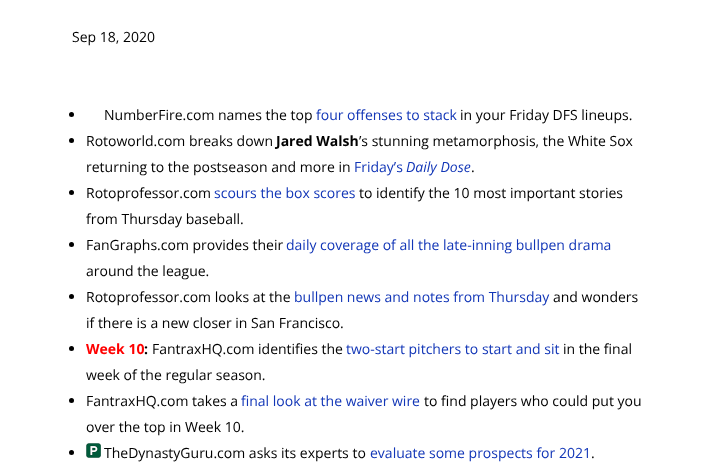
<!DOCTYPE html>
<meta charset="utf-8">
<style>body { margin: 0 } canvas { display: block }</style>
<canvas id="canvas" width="716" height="469"></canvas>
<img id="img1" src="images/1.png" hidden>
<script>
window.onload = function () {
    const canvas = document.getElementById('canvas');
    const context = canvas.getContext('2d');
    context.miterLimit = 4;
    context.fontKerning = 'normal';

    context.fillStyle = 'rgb(255, 255, 255)';
    context.fillRect(0, 0, 716, 469);
    context.fillStyle = 'rgb(0, 0, 0)';
    context.beginPath();
    context.arc(71.5, 114.5, 2.5, 0, 2 * Math.PI);
    context.fill();
    context.beginPath();
    context.arc(71.5, 140.5, 2.5, 0, 2 * Math.PI);
    context.fill();
    context.beginPath();
    context.arc(71.5, 192.5, 2.5, 0, 2 * Math.PI);
    context.fill();
    context.beginPath();
    context.arc(71.5, 244.5, 2.5, 0, 2 * Math.PI);
    context.fill();
    context.beginPath();
    context.arc(71.5, 296.5, 2.5, 0, 2 * Math.PI);
    context.fill();
    context.beginPath();
    context.arc(71.5, 348.5, 2.5, 0, 2 * Math.PI);
    context.fill();
    context.beginPath();
    context.arc(71.5, 400.5, 2.5, 0, 2 * Math.PI);
    context.fill();
    context.beginPath();
    context.arc(71.5, 452.5, 2.5, 0, 2 * Math.PI);
    context.fill();
    context.drawImage(document.getElementById('img1'), 86, 443, 15, 15);
    context.font = '14px Open Sans';
    context.fillText('Sep 18, 2020', 72, 42);
    context.fillText('NumberFire.com names the top', 104, 120);
    context.fillStyle = 'rgb(18, 54, 183)';
    context.fillText('four offenses to stack', 316, 120);
    context.fillStyle = 'rgb(0, 0, 0)';
    context.fillText('in your Friday DFS lineups.', 460, 120);
    context.fillText('Rotoworld.com breaks down', 86, 146);
    context.font = 'bold 14px Open Sans';
    context.fillText('Jared Walsh', 276, 146);
    context.font = '14px Open Sans';
    context.fillText('’s stunning metamorphosis, the White Sox', 359, 146);
    context.fillText('returning to the postseason and more in', 86, 172);
    context.fillStyle = 'rgb(18, 54, 183)';
    context.fillText('Friday’s', 354, 172);
    context.font = 'italic 14px Open Sans';
    context.fillText('Daily Dose', 406, 172);
    context.font = '14px Open Sans';
    context.fillStyle = 'rgb(0, 0, 0)';
    context.fillText('.', 471, 172);
    context.fillText('Rotoprofessor.com', 86, 198);
    context.fillStyle = 'rgb(18, 54, 183)';
    context.fillText('scours the box scores', 214, 198);
    context.fillStyle = 'rgb(0, 0, 0)';
    context.fillText('to identify the 10 most important stories', 359, 198);
    context.fillText('from Thursday baseball.', 86, 224);
    context.fillText('FanGraphs.com provides their', 86, 250);
    context.fillStyle = 'rgb(18, 54, 183)';
    context.fillText('daily coverage of all the late-inning bullpen drama', 286, 250);
    context.fillStyle = 'rgb(0, 0, 0)';
    context.fillText('around the league.', 86, 276);
    context.fillText('Rotoprofessor.com looks at the', 86, 302);
    context.fillStyle = 'rgb(18, 54, 183)';
    context.fillText('bullpen news and notes from Thursday', 294, 302);
    context.fillStyle = 'rgb(0, 0, 0)';
    context.fillText('and wonders', 553, 302);
    context.fillText('if there is a new closer in San Francisco.', 86, 328);
    context.font = 'bold 14px Open Sans';
    context.fillStyle = 'rgb(255, 0, 0)';
    context.fillText('Week 10', 86, 354);
    context.fillStyle = 'rgb(0, 0, 0)';
    context.fillText(':', 144, 354);
    context.font = '14px Open Sans';
    context.fillText('FantraxHQ.com identifies the', 152, 354);
    context.fillStyle = 'rgb(18, 54, 183)';
    context.fillText('two-start pitchers to start and sit', 346, 354);
    context.fillStyle = 'rgb(0, 0, 0)';
    context.fillText('in the final', 563, 354);
    context.fillText('week of the regular season.', 86, 380);
    context.fillText('FantraxHQ.com takes a', 86, 406);
    context.fillStyle = 'rgb(18, 54, 183)';
    context.fillText('final look at the waiver wire', 241, 406);
    context.fillStyle = 'rgb(0, 0, 0)';
    context.fillText('to find players who could put you', 424, 406);
    context.fillText('over the top in Week 10.', 86, 432);
    context.fillText('TheDynastyGuru.com asks its experts to', 104, 458);
    context.fillStyle = 'rgb(18, 54, 183)';
    context.fillText('evaluate some prospects for 2021', 370, 458);
    context.fillStyle = 'rgb(0, 0, 0)';
    context.fillText('.', 591, 458);
};
</script>
